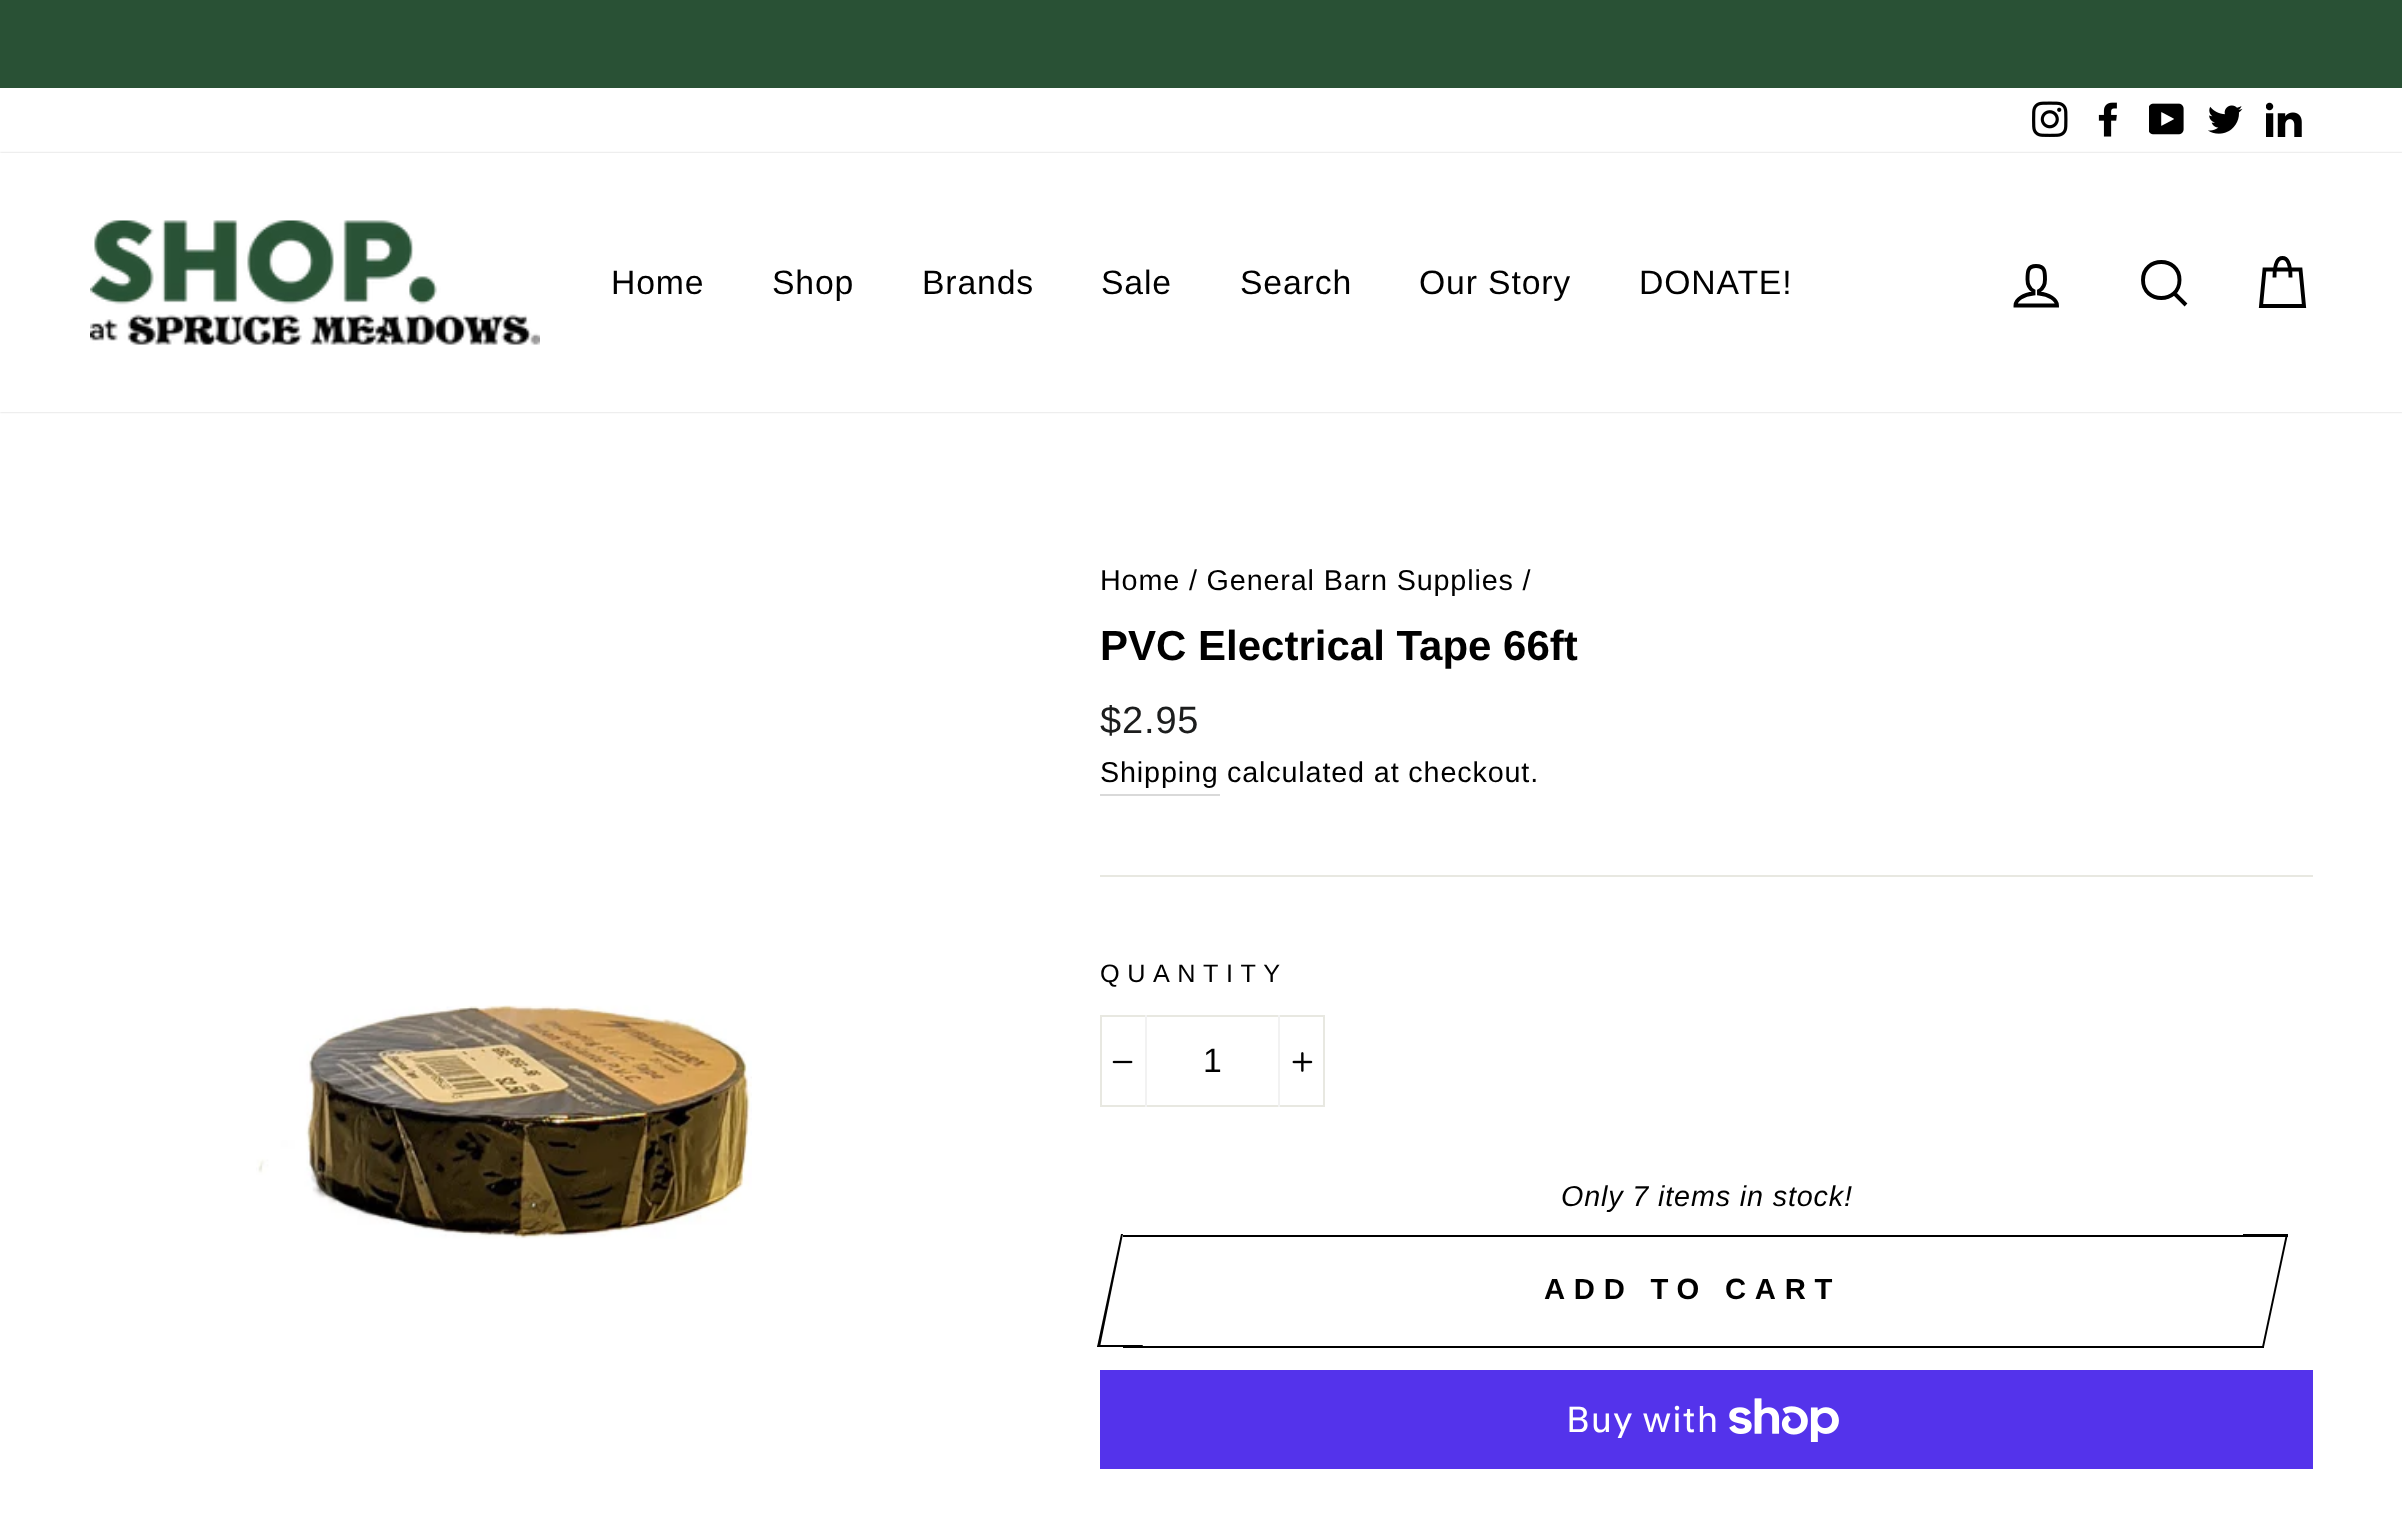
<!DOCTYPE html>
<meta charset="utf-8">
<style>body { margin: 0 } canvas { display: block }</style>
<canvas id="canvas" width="2402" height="1518"></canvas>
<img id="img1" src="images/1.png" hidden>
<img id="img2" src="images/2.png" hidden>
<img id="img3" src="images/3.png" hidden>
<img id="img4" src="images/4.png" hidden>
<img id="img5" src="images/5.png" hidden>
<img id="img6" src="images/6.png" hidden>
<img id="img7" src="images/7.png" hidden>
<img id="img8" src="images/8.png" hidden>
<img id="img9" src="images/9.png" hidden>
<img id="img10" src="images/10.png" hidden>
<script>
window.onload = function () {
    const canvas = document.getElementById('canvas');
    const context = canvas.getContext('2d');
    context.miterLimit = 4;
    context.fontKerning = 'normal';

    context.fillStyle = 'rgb(255, 255, 255)';
    context.fillRect(0, 0, 2402, 1518);
    context.fillStyle = 'rgb(41, 81, 53)';
    context.fillRect(0, 0, 2402, 88);
    context.drawImage(document.getElementById('img1'), 2032, 101, 36, 36);
    context.drawImage(document.getElementById('img2'), 2098, 102, 19, 35);
    context.drawImage(document.getElementById('img3'), 2149, 103, 35, 32);
    context.drawImage(document.getElementById('img4'), 2208, 105, 35, 29);
    context.drawImage(document.getElementById('img5'), 2266, 102, 36, 35);
    context.fillStyle = 'rgba(0, 0, 0, 0.2)';
    context.filter = 'blur(1px)';
    context.beginPath();
    context.rect(0, 153, 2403, 259);
    context.fill();
    context.filter = 'none';
    context.fillStyle = 'rgb(255, 255, 255)';
    context.fillRect(0, 153, 2402, 259);
    context.drawImage(document.getElementById('img6'), 90, 220, 450, 125);
    context.beginPath();
    context.moveTo(2039, 293.5);
    context.lineTo(2039, 291);
    context.bezierCurveTo(2042.5, 289, 2045, 284.5, 2045, 279.5);
    context.bezierCurveTo(2045, 272, 2045, 266, 2036, 266);
    context.bezierCurveTo(2027.5, 266, 2027.5, 272, 2027.5, 279.5);
    context.bezierCurveTo(2027.5, 284.5, 2030, 289, 2033.5, 291);
    context.lineTo(2033.5, 293.5);
    context.bezierCurveTo(2023.5, 294.5, 2015.5, 299.5, 2015.5, 305.5);
    context.lineTo(2057, 305.5);
    context.bezierCurveTo(2057, 299.5, 2049, 294.5, 2039, 293.5);
    context.closePath();
    context.strokeStyle = 'rgb(0, 0, 0)';
    context.lineWidth = 3.9;
    context.stroke();
    context.beginPath();
    context.moveTo(2179.5, 280);
    context.bezierCurveTo(2179.5, 304, 2143, 304, 2143, 280);
    context.bezierCurveTo(2143, 256, 2179.5, 256, 2179.5, 280);
    context.closePath();
    context.moveTo(2186, 305);
    context.lineTo(2174.5, 293.5);
    context.stroke();
    context.beginPath();
    context.moveTo(2274.5, 277.5);
    context.bezierCurveTo(2274.5, 262, 2278, 258, 2282.5, 258);
    context.bezierCurveTo(2287, 258, 2290.5, 262, 2290.5, 277.5);
    context.moveTo(2264.5, 269.5);
    context.lineTo(2300.5, 269.5);
    context.lineTo(2304, 306);
    context.lineTo(2261, 306);
    context.closePath();
    context.stroke();
    context.drawImage(document.getElementById('img7'), 256, 1005, 496, 234);
    context.fillStyle = 'rgb(217, 217, 217)';
    context.fillRect(1100, 794, 120, 2);
    context.fillStyle = 'rgb(232, 232, 225)';
    context.fillRect(1100, 875, 1213, 2);
    context.strokeStyle = 'rgb(232, 232, 225)';
    context.lineWidth = 2;
    context.strokeRect(1101, 1016, 223, 90);
    context.fillStyle = 'rgb(242, 242, 242)';
    context.fillRect(1145, 1015, 2, 92);
    context.drawImage(document.getElementById('img8'), 1112, 1060, 21, 4);
    context.fillRect(1278, 1015, 2, 92);
    context.drawImage(document.getElementById('img9'), 1292, 1052, 21, 20);
    context.fillStyle = 'rgb(0, 0, 0)';
    context.fillRect(1123, 1235, 1120, 2);
    context.fillRect(1123, 1346, 1141, 2);
    context.beginPath();
    context.moveTo(1098, 1345);
    context.lineTo(1143, 1345);
    context.lineTo(1142, 1347);
    context.lineTo(1097, 1347);
    context.closePath();
    context.fill();
    context.beginPath();
    context.moveTo(1121, 1234);
    context.lineTo(1123, 1234);
    context.lineTo(1100, 1347);
    context.lineTo(1097, 1347);
    context.closePath();
    context.fill();
    context.fillRect(2243, 1234, 45, 3);
    context.beginPath();
    context.moveTo(2286, 1234);
    context.lineTo(2288, 1234);
    context.lineTo(2264, 1347);
    context.lineTo(2262, 1347);
    context.closePath();
    context.fill();
    context.fillStyle = 'rgb(84, 51, 235)';
    context.fillRect(1100, 1370, 1213, 99);
    context.drawImage(document.getElementById('img10'), 1729, 1398, 110, 44);
    context.letterSpacing = '0.85px';
    context.font = '33.75px Arimo';
    context.fillStyle = 'rgb(0, 0, 0)';
    context.fillText('Home', 611, 294);
    context.fillText('Shop', 772, 294);
    context.fillText('Brands', 922, 294);
    context.fillText('Sale', 1101, 294);
    context.fillText('Search', 1240, 294);
    context.fillText('Our Story', 1419, 294);
    context.fillText('DONATE!', 1639, 294);
    context.font = '28.75px Arimo';
    context.fillText('Home / General Barn Supplies /', 1100, 590);
    context.letterSpacing = '0px';
    context.font = 'bold 42px Arimo';
    context.fillText('PVC Electrical Tape 66ft', 1100, 660);
    context.letterSpacing = '0.85px';
    context.font = '38px Arimo';
    context.fillStyle = 'rgb(28, 29, 29)';
    context.fillText('$2.95', 1100, 733);
    context.font = '28.75px Arimo';
    context.fillStyle = 'rgb(0, 0, 0)';
    context.fillText('Shipping', 1100, 782);
    context.fillText('calculated at checkout.', 1227, 782);
    context.letterSpacing = '7.5px';
    context.font = '25.25px Arimo';
    context.fillText('QUANTITY', 1100, 982);
    context.letterSpacing = '0.85px';
    context.font = '33.75px Arimo';
    context.fillText('1', 1203, 1072);
    context.font = 'italic 28.75px Arimo';
    context.fillText('Only 7 items in stock!', 1561, 1206);
    context.letterSpacing = '8.75px';
    context.font = 'bold 29.25px Arimo';
    context.fillText('ADD TO CART', 1544, 1299);
    context.letterSpacing = '0.85px';
    context.font = '36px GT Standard';
    context.fillStyle = 'rgb(255, 255, 255)';
    context.fillText('Buy with', 1566, 1432);
};
</script>
